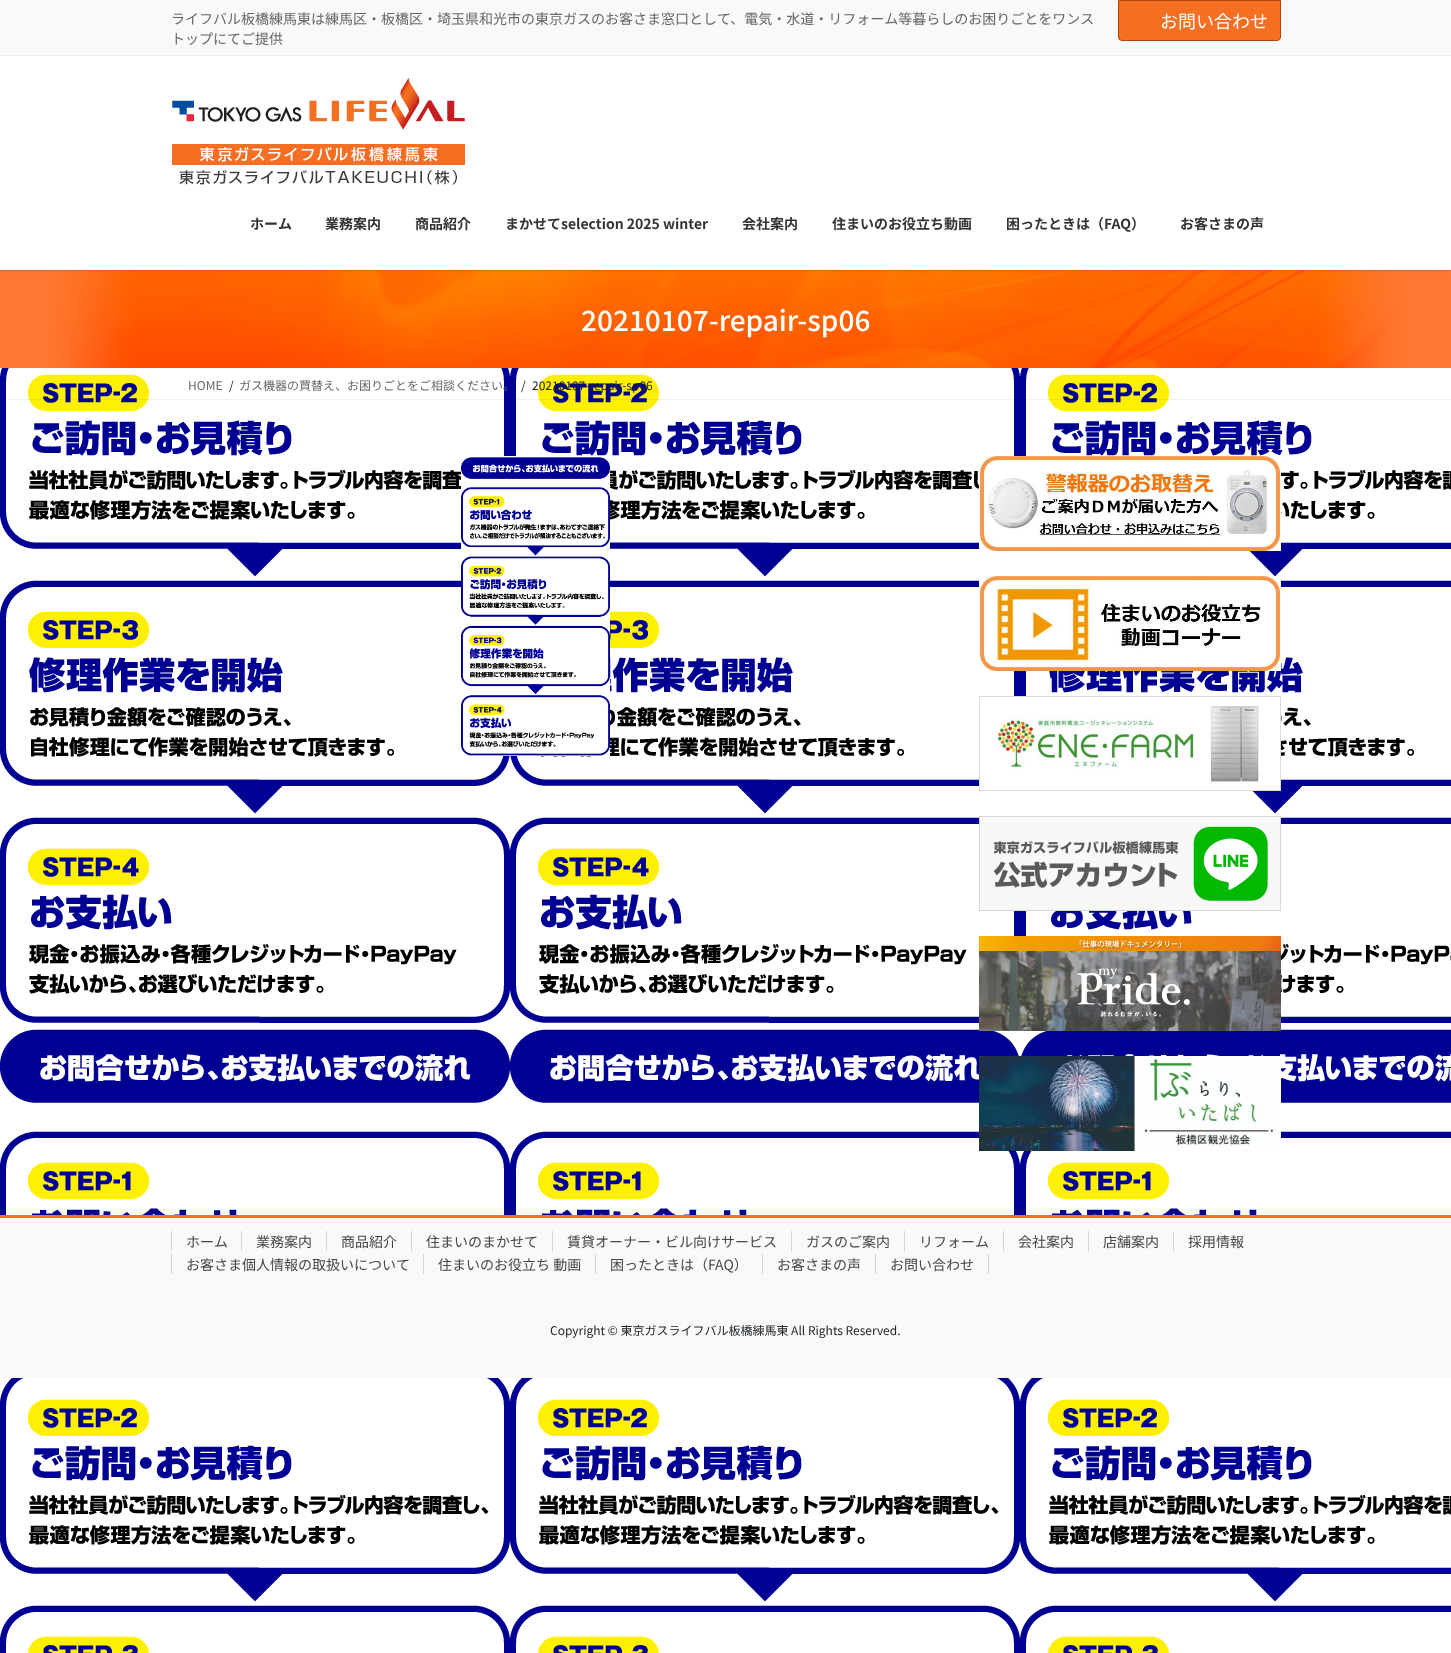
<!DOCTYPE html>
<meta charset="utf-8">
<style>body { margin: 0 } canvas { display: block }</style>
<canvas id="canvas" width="1451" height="1653"></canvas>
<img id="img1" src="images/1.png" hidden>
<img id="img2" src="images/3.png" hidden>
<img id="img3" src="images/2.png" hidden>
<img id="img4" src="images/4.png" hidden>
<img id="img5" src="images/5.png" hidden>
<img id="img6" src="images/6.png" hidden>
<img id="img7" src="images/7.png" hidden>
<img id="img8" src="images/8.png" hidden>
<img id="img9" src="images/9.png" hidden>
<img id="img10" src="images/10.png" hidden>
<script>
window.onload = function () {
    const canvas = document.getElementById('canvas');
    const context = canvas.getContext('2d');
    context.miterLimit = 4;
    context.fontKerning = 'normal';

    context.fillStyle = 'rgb(255, 255, 255)';
    context.fillRect(0, 0, 1451, 1653);
    context.drawImage(document.getElementById('img1'), 0, 368, 1451, 1285);
    context.drawImage(document.getElementById('img2'), 0, 270, 1451, 98);
    context.fillStyle = 'rgba(0, 0, 0, 0.1)';
    context.filter = 'blur(1.5px)';
    context.beginPath();
    context.rect(0, -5, 1451, 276);
    context.fill();
    context.filter = 'none';
    context.fillStyle = 'rgb(255, 255, 255)';
    context.fillRect(0, 56, 1451, 214);
    context.fillStyle = 'rgb(249, 249, 249)';
    context.fillRect(0, 0, 1451, 55);
    context.fillStyle = 'rgb(239, 239, 239)';
    context.fillRect(0, 55, 1451, 1);
    context.fillStyle = 'rgb(244, 111, 33)';
    context.beginPath();
    context.roundRect(1118.5, 0.5, 162, 40, [0, 0, 3.5, 3.5]);
    context.fill();
    context.strokeStyle = 'rgb(176, 69, 6)';
    context.stroke();
    context.drawImage(document.getElementById('img3'), 172, 78, 293, 107);
    context.fillStyle = 'rgba(0, 0, 0, 0.05)';
    context.fillRect(0, 399, 1451, 1);
    context.drawImage(document.getElementById('img4'), 461, 456, 149, 300);
    context.drawImage(document.getElementById('img5'), 979, 456, 302, 95);
    context.drawImage(document.getElementById('img6'), 979, 576, 302, 95);
    context.drawImage(document.getElementById('img7'), 979, 696, 302, 95);
    context.drawImage(document.getElementById('img8'), 979, 816, 302, 95);
    context.drawImage(document.getElementById('img9'), 979, 936, 302, 95);
    context.drawImage(document.getElementById('img10'), 979, 1056, 302, 95);
    context.fillStyle = 'rgb(249, 249, 249)';
    context.fillRect(0, 1218, 1451, 160);
    context.fillStyle = 'rgb(244, 111, 33)';
    context.fillRect(0, 1215, 1451, 3);
    context.fillStyle = 'rgb(212, 212, 212)';
    context.fillRect(171, 1231, 1, 20);
    context.fillRect(241, 1231, 1, 20);
    context.fillRect(326, 1231, 1, 20);
    context.fillRect(411, 1231, 1, 20);
    context.fillRect(552, 1231, 1, 20);
    context.fillRect(791, 1231, 1, 20);
    context.fillRect(904, 1231, 1, 20);
    context.fillRect(1003, 1231, 1, 20);
    context.fillRect(1088, 1231, 1, 20);
    context.fillRect(1173, 1231, 1, 20);
    context.fillRect(171, 1254, 1, 20);
    context.fillRect(423, 1254, 1, 20);
    context.fillRect(595, 1254, 1, 20);
    context.fillRect(762, 1254, 1, 20);
    context.fillRect(988, 1254, 1, 20);
    context.fillRect(875, 1254, 1, 20);
    context.font = '14px Noto Sans JP';
    context.fillStyle = 'rgb(102, 102, 102)';
    context.fillText('ライフバル板橋練馬東は練馬区・板橋区・埼玉県和光市の東京ガスのお客さま窓口として、電気・水道・リフォーム等暮らしのお困りごとをワンス', 171, 24);
    context.fillText('トップにてご提供', 171, 44);
    context.font = '18px Noto Sans JP';
    context.fillStyle = 'rgb(255, 255, 255)';
    context.fillText('お問い合わせ', 1160, 28);
    context.font = 'bold 14px Noto Sans JP';
    context.fillStyle = 'rgb(51, 51, 51)';
    context.fillText('ホーム', 250, 229);
    context.fillText('業務案内', 325, 229);
    context.fillText('商品紹介', 415, 229);
    context.fillText('まかせてselection 2025 winter', 505, 229);
    context.fillText('会社案内', 742, 229);
    context.fillText('住まいのお役立ち動画', 832, 229);
    context.fillText('困ったときは（FAQ）', 1006, 229);
    context.fillText('お客さまの声', 1180, 229);
    context.font = '500 28px Noto Sans JP';
    context.fillStyle = 'rgb(255, 255, 255)';
    context.fillText('20210107-repair-sp06', 581, 331);
    context.font = '12px Noto Sans JP';
    context.fillStyle = 'rgb(102, 102, 102)';
    context.fillText('HOME', 188, 390);
    context.fillStyle = 'rgb(33, 37, 41)';
    context.fillText('/', 229, 390);
    context.fillStyle = 'rgb(102, 102, 102)';
    context.fillText('ガス機器の買替え、お困りごとをご相談ください。', 239, 390);
    context.fillStyle = 'rgb(33, 37, 41)';
    context.fillText('/', 521, 390);
    context.fillText('20210107-repair-sp06', 532, 390);
    context.font = '14px Noto Sans JP';
    context.fillStyle = 'rgb(70, 70, 70)';
    context.fillText('ホーム', 186, 1247);
    context.fillText('業務案内', 256, 1247);
    context.fillText('商品紹介', 341, 1247);
    context.fillText('住まいのまかせて', 426, 1247);
    context.fillText('賃貸オーナー・ビル向けサービス', 567, 1247);
    context.fillText('ガスのご案内', 806, 1247);
    context.fillText('リフォーム', 919, 1247);
    context.fillText('会社案内', 1018, 1247);
    context.fillText('店舗案内', 1103, 1247);
    context.fillText('採用情報', 1188, 1247);
    context.fillText('お客さま個人情報の取扱いについて', 186, 1270);
    context.fillText('住まいのお役立ち 動画', 438, 1270);
    context.fillText('困ったときは（FAQ）', 610, 1270);
    context.fillText('お客さまの声', 777, 1270);
    context.fillText('お問い合わせ', 890, 1270);
    context.font = '12px Noto Sans JP';
    context.fillStyle = 'rgb(33, 37, 41)';
    context.fillText('Copyright © 東京ガスライフバル板橋練馬東 All Rights Reserved.', 550, 1335);
};
</script>
